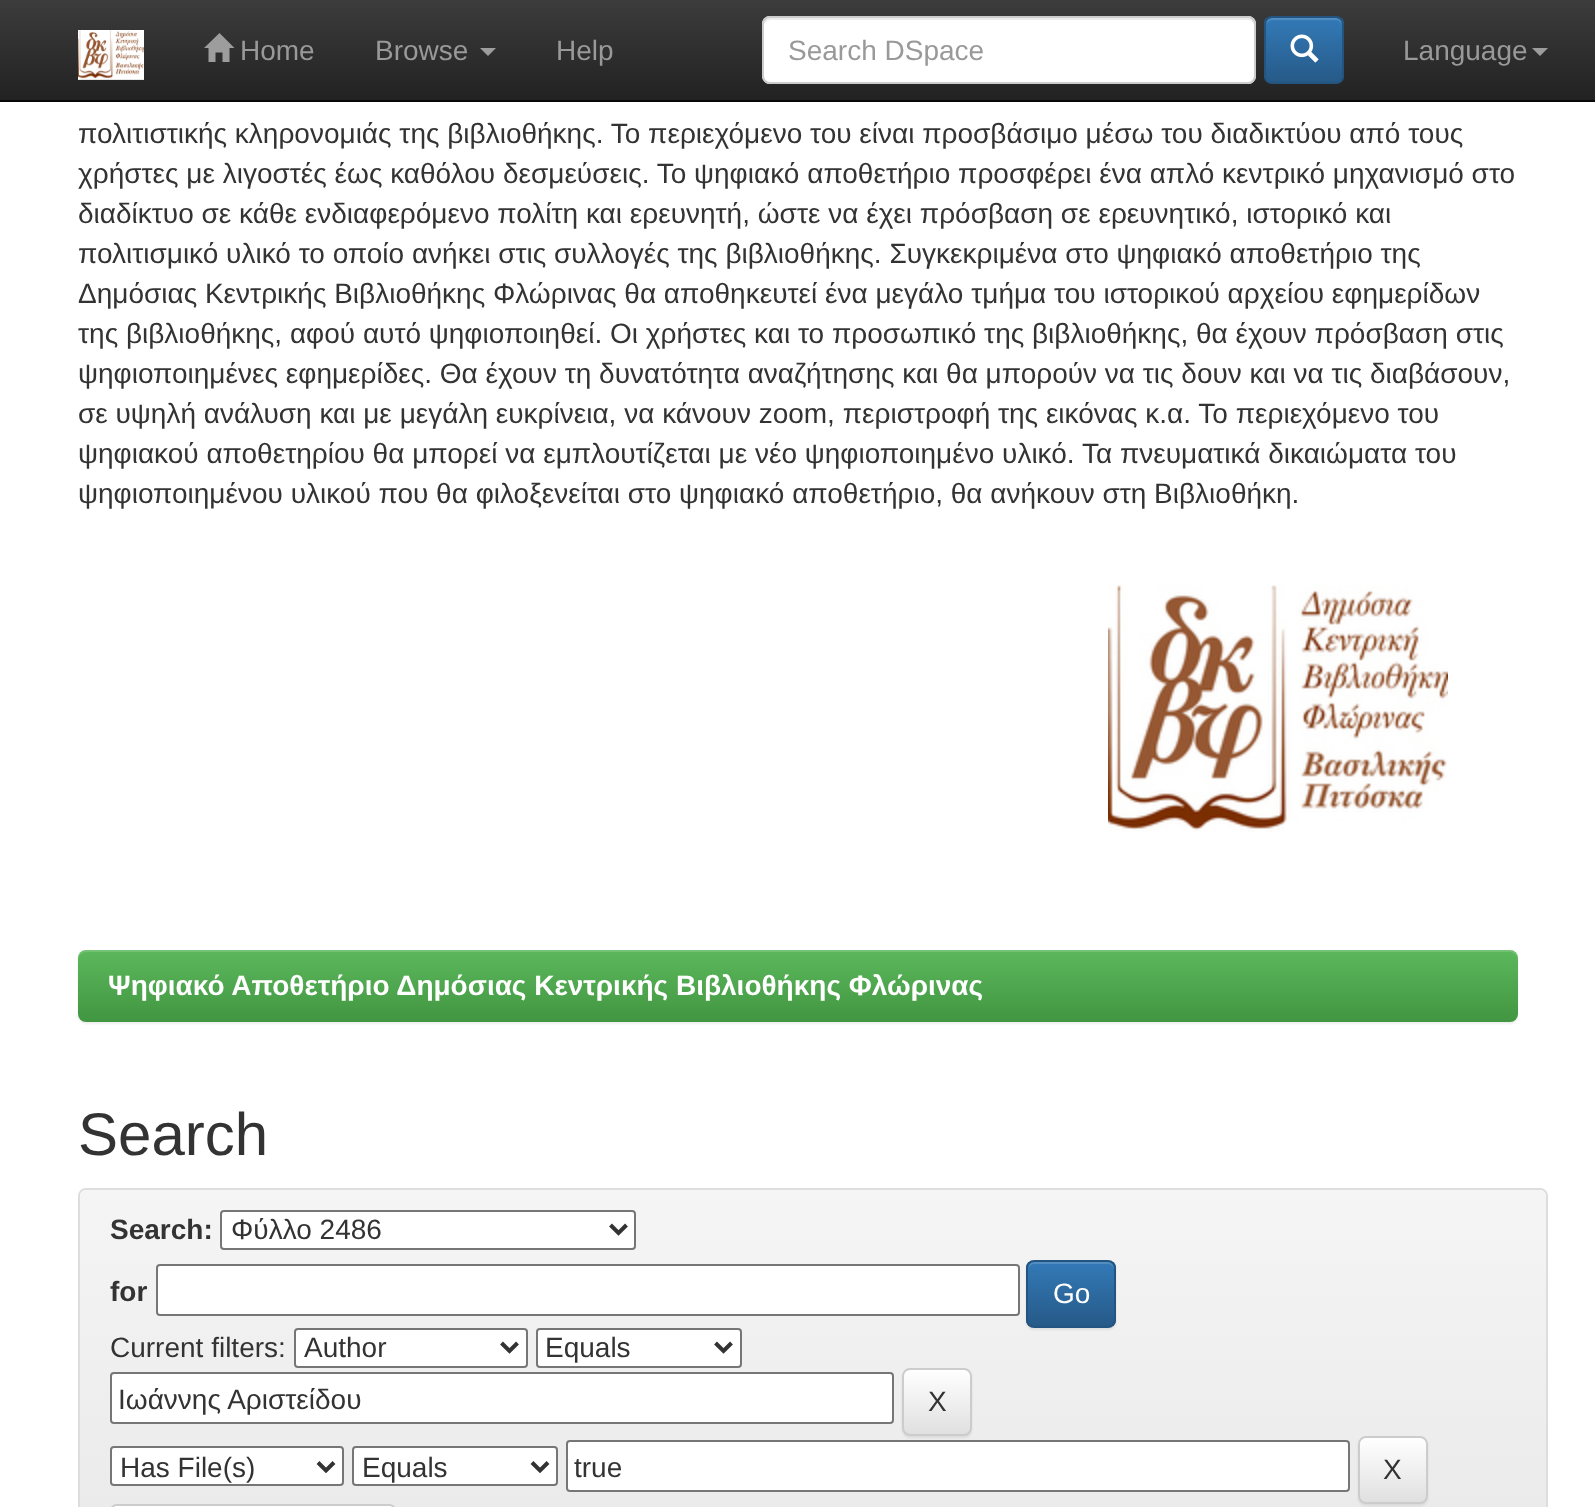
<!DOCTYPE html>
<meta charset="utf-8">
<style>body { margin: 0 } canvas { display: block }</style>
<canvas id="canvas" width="1595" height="1507"></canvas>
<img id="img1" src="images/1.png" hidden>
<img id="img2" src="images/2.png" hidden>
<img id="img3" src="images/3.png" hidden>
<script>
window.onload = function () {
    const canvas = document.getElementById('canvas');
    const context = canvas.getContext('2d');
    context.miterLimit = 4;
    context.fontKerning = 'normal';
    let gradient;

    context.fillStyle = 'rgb(255, 255, 255)';
    context.fillRect(0, 0, 1595, 1507);
    gradient = context.createLinearGradient(798, 0, 798, 100);
    gradient.addColorStop(0, 'rgb(60, 60, 60)');
    gradient.addColorStop(1, 'rgb(34, 34, 34)');
    context.fillStyle = gradient;
    context.fillRect(0, 0, 1595, 100);
    context.fillStyle = 'rgb(8, 8, 8)';
    context.fillRect(0, 100, 1595, 2);
    context.drawImage(document.getElementById('img1'), 78, 30, 66, 50);
    context.fillStyle = 'rgb(157, 157, 157)';
    context.beginPath();
    context.moveTo(234.5, 48);
    context.lineTo(229.5, 48);
    context.lineTo(229.5, 62);
    context.lineTo(222.5, 62);
    context.lineTo(222.5, 52.5);
    context.lineTo(215.5, 52.5);
    context.lineTo(215.5, 62);
    context.lineTo(208.5, 62);
    context.lineTo(208.5, 48);
    context.lineTo(204, 48);
    context.lineTo(219.5, 33);
    context.closePath();
    context.fill();
    context.beginPath();
    context.moveTo(480, 48);
    context.lineTo(496, 48);
    context.lineTo(488, 56);
    context.closePath();
    context.fill();
    context.fillStyle = 'rgb(255, 255, 255)';
    context.beginPath();
    context.roundRect(762, 16, 494, 68, 8);
    context.fill();
    context.fillStyle = 'rgb(236, 236, 236)';
    context.beginPath();
    context.moveTo(770, 20);
    context.lineTo(1248, 20);
    context.bezierCurveTo(1251, 20, 1254, 23, 1254, 26);
    context.bezierCurveTo(1254, 22, 1253, 18, 1248, 18);
    context.lineTo(770, 18);
    context.bezierCurveTo(765, 18, 764, 22, 764, 26);
    context.bezierCurveTo(764, 23, 767, 20, 770, 20);
    context.closePath();
    context.fill();
    context.beginPath();
    context.roundRect(763, 17, 492, 66, 7);
    context.strokeStyle = 'rgb(204, 204, 204)';
    context.lineWidth = 2;
    context.stroke();
    context.save();
    context.beginPath();
    context.roundRect(1264, 16, 80, 68, 8);
    context.clip();
    gradient = context.createLinearGradient(1304, 18, 1304, 82);
    gradient.addColorStop(0, 'rgb(51, 122, 183)');
    gradient.addColorStop(1, 'rgb(38, 90, 136)');
    context.fillStyle = gradient;
    context.fillRect(1264, 18, 80, 64);
    context.restore();
    context.fillStyle = 'rgba(255, 255, 255, 0.15)';
    context.beginPath();
    context.moveTo(1272, 20);
    context.lineTo(1336, 20);
    context.bezierCurveTo(1339, 20, 1342, 23, 1342, 26);
    context.bezierCurveTo(1342, 16, 1334, 18, 1325, 18);
    context.lineTo(1283, 18);
    context.bezierCurveTo(1274, 18, 1266, 16, 1266, 26);
    context.bezierCurveTo(1266, 23, 1269, 20, 1272, 20);
    context.closePath();
    context.fill();
    context.beginPath();
    context.roundRect(1265, 17, 78, 66, 7);
    context.strokeStyle = 'rgb(36, 85, 128)';
    context.stroke();
    context.drawImage(document.getElementById('img2'), 1290, 34, 29, 29);
    context.fillStyle = 'rgb(157, 157, 157)';
    context.beginPath();
    context.moveTo(1532, 48);
    context.lineTo(1548, 48);
    context.lineTo(1540, 56);
    context.closePath();
    context.fill();
    context.drawImage(document.getElementById('img3'), 1108, 585, 340, 247);
    context.fillStyle = 'rgba(0, 0, 0, 0.07)';
    context.filter = 'blur(1px)';
    context.beginPath();
    context.roundRect(78, 952, 1440, 72, 8);
    context.fill();
    context.filter = 'none';
    gradient = context.createLinearGradient(798, 950, 798, 1022);
    gradient.addColorStop(0, 'rgb(92, 184, 92)');
    gradient.addColorStop(1, 'rgb(65, 150, 65)');
    context.fillStyle = gradient;
    context.beginPath();
    context.roundRect(78, 950, 1440, 72, 8);
    context.fill();
    context.fillStyle = 'rgba(255, 255, 255, 0.15)';
    context.beginPath();
    context.moveTo(86, 952);
    context.lineTo(1510, 952);
    context.bezierCurveTo(1514, 952, 1518, 956, 1518, 960);
    context.lineTo(1518, 958);
    context.bezierCurveTo(1518, 954, 1514, 950, 1510, 950);
    context.lineTo(86, 950);
    context.bezierCurveTo(82, 950, 78, 954, 78, 958);
    context.lineTo(78, 960);
    context.bezierCurveTo(78, 956, 82, 952, 86, 952);
    context.closePath();
    context.fill();
    context.beginPath();
    context.roundRect(79, 1189, 1468, 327, 7);
    context.strokeStyle = 'rgb(221, 221, 221)';
    context.stroke();
    gradient = context.createLinearGradient(813, 1190, 813, 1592);
    gradient.addColorStop(0, 'rgb(245, 245, 245)');
    gradient.addColorStop(1, 'rgb(232, 232, 232)');
    context.fillStyle = gradient;
    context.beginPath();
    context.moveTo(86, 1190);
    context.lineTo(1540, 1190);
    context.bezierCurveTo(1543.5, 1190, 1546, 1192.5, 1546, 1196);
    context.lineTo(1546, 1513);
    context.lineTo(80, 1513);
    context.lineTo(80, 1196);
    context.bezierCurveTo(80, 1192.5, 82.5, 1190, 86, 1190);
    context.closePath();
    context.fill();
    context.fillStyle = 'rgb(255, 255, 255)';
    context.beginPath();
    context.roundRect(221, 1211, 414, 38, 3);
    context.fill();
    context.strokeStyle = 'rgb(118, 118, 118)';
    context.stroke();
    context.beginPath();
    context.moveTo(610.5, 1225);
    context.lineTo(618.5, 1233);
    context.lineTo(626.5, 1225);
    context.strokeStyle = 'rgb(51, 51, 51)';
    context.lineWidth = 4;
    context.stroke();
    context.beginPath();
    context.roundRect(157, 1265, 862, 50, 3);
    context.fill();
    context.strokeStyle = 'rgb(118, 118, 118)';
    context.lineWidth = 2;
    context.stroke();
    context.fillStyle = 'rgba(0, 0, 0, 0.07)';
    context.filter = 'blur(1px)';
    context.beginPath();
    context.roundRect(1026, 1262, 90, 68, 8);
    context.fill();
    context.filter = 'none';
    context.save();
    context.beginPath();
    context.roundRect(1026, 1260, 90, 68, 8);
    context.clip();
    gradient = context.createLinearGradient(1071, 1262, 1071, 1326);
    gradient.addColorStop(0, 'rgb(51, 122, 183)');
    gradient.addColorStop(1, 'rgb(38, 90, 136)');
    context.fillStyle = gradient;
    context.fillRect(1026, 1262, 90, 64);
    context.restore();
    context.fillStyle = 'rgba(255, 255, 255, 0.15)';
    context.beginPath();
    context.moveTo(1034, 1264);
    context.lineTo(1108, 1264);
    context.bezierCurveTo(1111, 1264, 1114, 1267, 1114, 1270);
    context.bezierCurveTo(1114, 1259, 1105, 1262, 1096, 1262);
    context.lineTo(1046, 1262);
    context.bezierCurveTo(1037, 1262, 1028, 1259, 1028, 1270);
    context.bezierCurveTo(1028, 1267, 1031, 1264, 1034, 1264);
    context.closePath();
    context.fill();
    context.beginPath();
    context.roundRect(1027, 1261, 88, 66, 7);
    context.strokeStyle = 'rgb(36, 85, 128)';
    context.stroke();
    context.fillStyle = 'rgb(255, 255, 255)';
    context.beginPath();
    context.roundRect(295, 1329, 232, 38, 3);
    context.fill();
    context.strokeStyle = 'rgb(118, 118, 118)';
    context.stroke();
    context.beginPath();
    context.moveTo(501.5, 1343);
    context.lineTo(509.5, 1351);
    context.lineTo(517.5, 1343);
    context.strokeStyle = 'rgb(51, 51, 51)';
    context.lineWidth = 4;
    context.stroke();
    context.beginPath();
    context.roundRect(537, 1329, 204, 38, 3);
    context.fill();
    context.strokeStyle = 'rgb(118, 118, 118)';
    context.lineWidth = 2;
    context.stroke();
    context.beginPath();
    context.moveTo(715.5, 1343);
    context.lineTo(723.5, 1351);
    context.lineTo(731.5, 1343);
    context.strokeStyle = 'rgb(51, 51, 51)';
    context.lineWidth = 4;
    context.stroke();
    context.beginPath();
    context.roundRect(111, 1373, 782, 50, 3);
    context.fill();
    context.strokeStyle = 'rgb(118, 118, 118)';
    context.lineWidth = 2;
    context.stroke();
    context.beginPath();
    context.roundRect(567, 1441, 782, 50, 3);
    context.fill();
    context.stroke();
    context.fillStyle = 'rgba(0, 0, 0, 0.07)';
    context.filter = 'blur(1px)';
    context.beginPath();
    context.roundRect(902, 1370, 70, 68, 8);
    context.fill();
    context.filter = 'none';
    context.save();
    context.beginPath();
    context.roundRect(902, 1368, 70, 68, 8);
    context.clip();
    gradient = context.createLinearGradient(937, 1370, 937, 1434);
    gradient.addColorStop(0, 'rgb(255, 255, 255)');
    gradient.addColorStop(1, 'rgb(224, 224, 224)');
    context.fillStyle = gradient;
    context.fillRect(902, 1370, 70, 64);
    context.restore();
    context.fillStyle = 'rgb(255, 255, 255)';
    context.beginPath();
    context.moveTo(910, 1372);
    context.lineTo(964, 1372);
    context.bezierCurveTo(967, 1372, 970, 1375, 970, 1378);
    context.bezierCurveTo(970, 1368, 963, 1370, 955, 1370);
    context.lineTo(919, 1370);
    context.bezierCurveTo(911, 1370, 904, 1368, 904, 1378);
    context.bezierCurveTo(904, 1375, 907, 1372, 910, 1372);
    context.closePath();
    context.fill();
    context.beginPath();
    context.roundRect(903, 1369, 68, 66, 7);
    context.strokeStyle = 'rgb(204, 204, 204)';
    context.stroke();
    context.beginPath();
    context.roundRect(111, 1447, 232, 38, 3);
    context.fill();
    context.strokeStyle = 'rgb(118, 118, 118)';
    context.stroke();
    context.beginPath();
    context.moveTo(318, 1462.5);
    context.lineTo(326, 1470.5);
    context.lineTo(334, 1462.5);
    context.strokeStyle = 'rgb(51, 51, 51)';
    context.lineWidth = 4;
    context.stroke();
    context.beginPath();
    context.roundRect(353, 1447, 204, 38, 3);
    context.fill();
    context.strokeStyle = 'rgb(118, 118, 118)';
    context.lineWidth = 2;
    context.stroke();
    context.beginPath();
    context.moveTo(532, 1462.5);
    context.lineTo(540, 1470.5);
    context.lineTo(548, 1462.5);
    context.strokeStyle = 'rgb(51, 51, 51)';
    context.lineWidth = 4;
    context.stroke();
    context.fillStyle = 'rgba(0, 0, 0, 0.07)';
    context.filter = 'blur(1px)';
    context.beginPath();
    context.roundRect(1358, 1438, 70, 68, 8);
    context.fill();
    context.filter = 'none';
    context.save();
    context.beginPath();
    context.roundRect(1358, 1436, 70, 68, 8);
    context.clip();
    gradient = context.createLinearGradient(1393, 1438, 1393, 1502);
    gradient.addColorStop(0, 'rgb(255, 255, 255)');
    gradient.addColorStop(1, 'rgb(224, 224, 224)');
    context.fillStyle = gradient;
    context.fillRect(1358, 1438, 70, 64);
    context.restore();
    context.fillStyle = 'rgb(255, 255, 255)';
    context.beginPath();
    context.moveTo(1366, 1440);
    context.lineTo(1420, 1440);
    context.bezierCurveTo(1423, 1440, 1426, 1443, 1426, 1446);
    context.bezierCurveTo(1426, 1436, 1419, 1438, 1411, 1438);
    context.lineTo(1375, 1438);
    context.bezierCurveTo(1367, 1438, 1360, 1436, 1360, 1446);
    context.bezierCurveTo(1360, 1443, 1363, 1440, 1366, 1440);
    context.closePath();
    context.fill();
    context.beginPath();
    context.roundRect(1359, 1437, 68, 66, 7);
    context.strokeStyle = 'rgb(204, 204, 204)';
    context.lineWidth = 2;
    context.stroke();
    context.save();
    context.beginPath();
    context.roundRect(110, 1504, 286, 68, 8);
    context.clip();
    gradient = context.createLinearGradient(253, 1506, 253, 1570);
    gradient.addColorStop(0, 'rgb(255, 255, 255)');
    gradient.addColorStop(1, 'rgb(224, 224, 224)');
    context.fillStyle = gradient;
    context.fillRect(110, 1506, 286, 1);
    context.restore();
    context.beginPath();
    context.roundRect(111, 1505, 284, 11, 7);
    context.stroke();
    context.font = '28px Liberation Sans';
    context.fillStyle = 'rgb(153, 153, 153)';
    context.fillText('Home', 240, 60);
    context.fillText('Browse', 375, 60);
    context.fillText('Help', 556, 60);
    context.fillText('Search DSpace', 788, 60);
    context.fillText('Language', 1403, 60);
    context.fillStyle = 'rgb(51, 51, 51)';
    context.fillText('πολιτιστικής κληρονομιάς της βιβλιοθήκης. Το περιεχόμενο του είναι προσβάσιμο μέσω του διαδικτύου από τους', 78, 143);
    context.fillText('χρήστες με λιγοστές έως καθόλου δεσμεύσεις. Το ψηφιακό αποθετήριο προσφέρει ένα απλό κεντρικό μηχανισμό στο', 78, 183);
    context.fillText('διαδίκτυο σε κάθε ενδιαφερόμενο πολίτη και ερευνητή, ώστε να έχει πρόσβαση σε ερευνητικό, ιστορικό και', 78, 223);
    context.fillText('πολιτισμικό υλικό το οποίο ανήκει στις συλλογές της βιβλιοθήκης. Συγκεκριμένα στο ψηφιακό αποθετήριο της', 78, 263);
    context.fillText('Δημόσιας Κεντρικής Βιβλιοθήκης Φλώρινας θα αποθηκευτεί ένα μεγάλο τμήμα του ιστορικού αρχείου εφημερίδων', 78, 303);
    context.fillText('της βιβλιοθήκης, αφού αυτό ψηφιοποιηθεί. Οι χρήστες και το προσωπικό της βιβλιοθήκης, θα έχουν πρόσβαση στις', 78, 343);
    context.fillText('ψηφιοποιημένες εφημερίδες. Θα έχουν τη δυνατότητα αναζήτησης και θα μπορούν να τις δουν και να τις διαβάσουν,', 78, 383);
    context.fillText('σε υψηλή ανάλυση και με μεγάλη ευκρίνεια, να κάνουν zoom, περιστροφή της εικόνας κ.α. Το περιεχόμενο του', 78, 423);
    context.fillText('ψηφιακού αποθετηρίου θα μπορεί να εμπλουτίζεται με νέο ψηφιοποιημένο υλικό. Τα πνευματικά δικαιώματα του', 78, 463);
    context.fillText('ψηφιοποιημένου υλικού που θα φιλοξενείται στο ψηφιακό αποθετήριο, θα ανήκουν στη Βιβλιοθήκη.', 78, 503);
    context.font = 'bold 28px Liberation Sans';
    context.fillStyle = 'rgb(255, 255, 255)';
    context.fillText('Ψηφιακό Αποθετήριο Δημόσιας Κεντρικής Βιβλιοθήκης Φλώρινας', 108, 995);
    context.font = '60px Liberation Sans';
    context.fillStyle = 'rgb(51, 51, 51)';
    context.fillText('Search', 78, 1155);
    context.font = 'bold 28px Liberation Sans';
    context.fillText('Search:', 110, 1239);
    context.font = '28px Liberation Sans';
    context.fillText('Φύλλο 2486', 231, 1239);
    context.font = 'bold 28px Liberation Sans';
    context.fillText('for', 110, 1301);
    context.font = '28px Liberation Sans';
    context.fillStyle = 'rgb(255, 255, 255)';
    context.fillText('Go', 1053, 1303);
    context.fillStyle = 'rgb(51, 51, 51)';
    context.fillText('Current filters:', 110, 1357);
    context.fillText('Author', 304, 1357);
    context.fillText('Equals', 545, 1357);
    context.fillText('Ιωάννης Αριστείδου', 118, 1409);
    context.fillText('X', 928, 1411);
    context.fillText('Has File(s)', 120, 1477);
    context.fillText('Equals', 362, 1477);
    context.fillText('true', 574, 1477);
    context.fillText('X', 1383, 1479);
};
</script>
